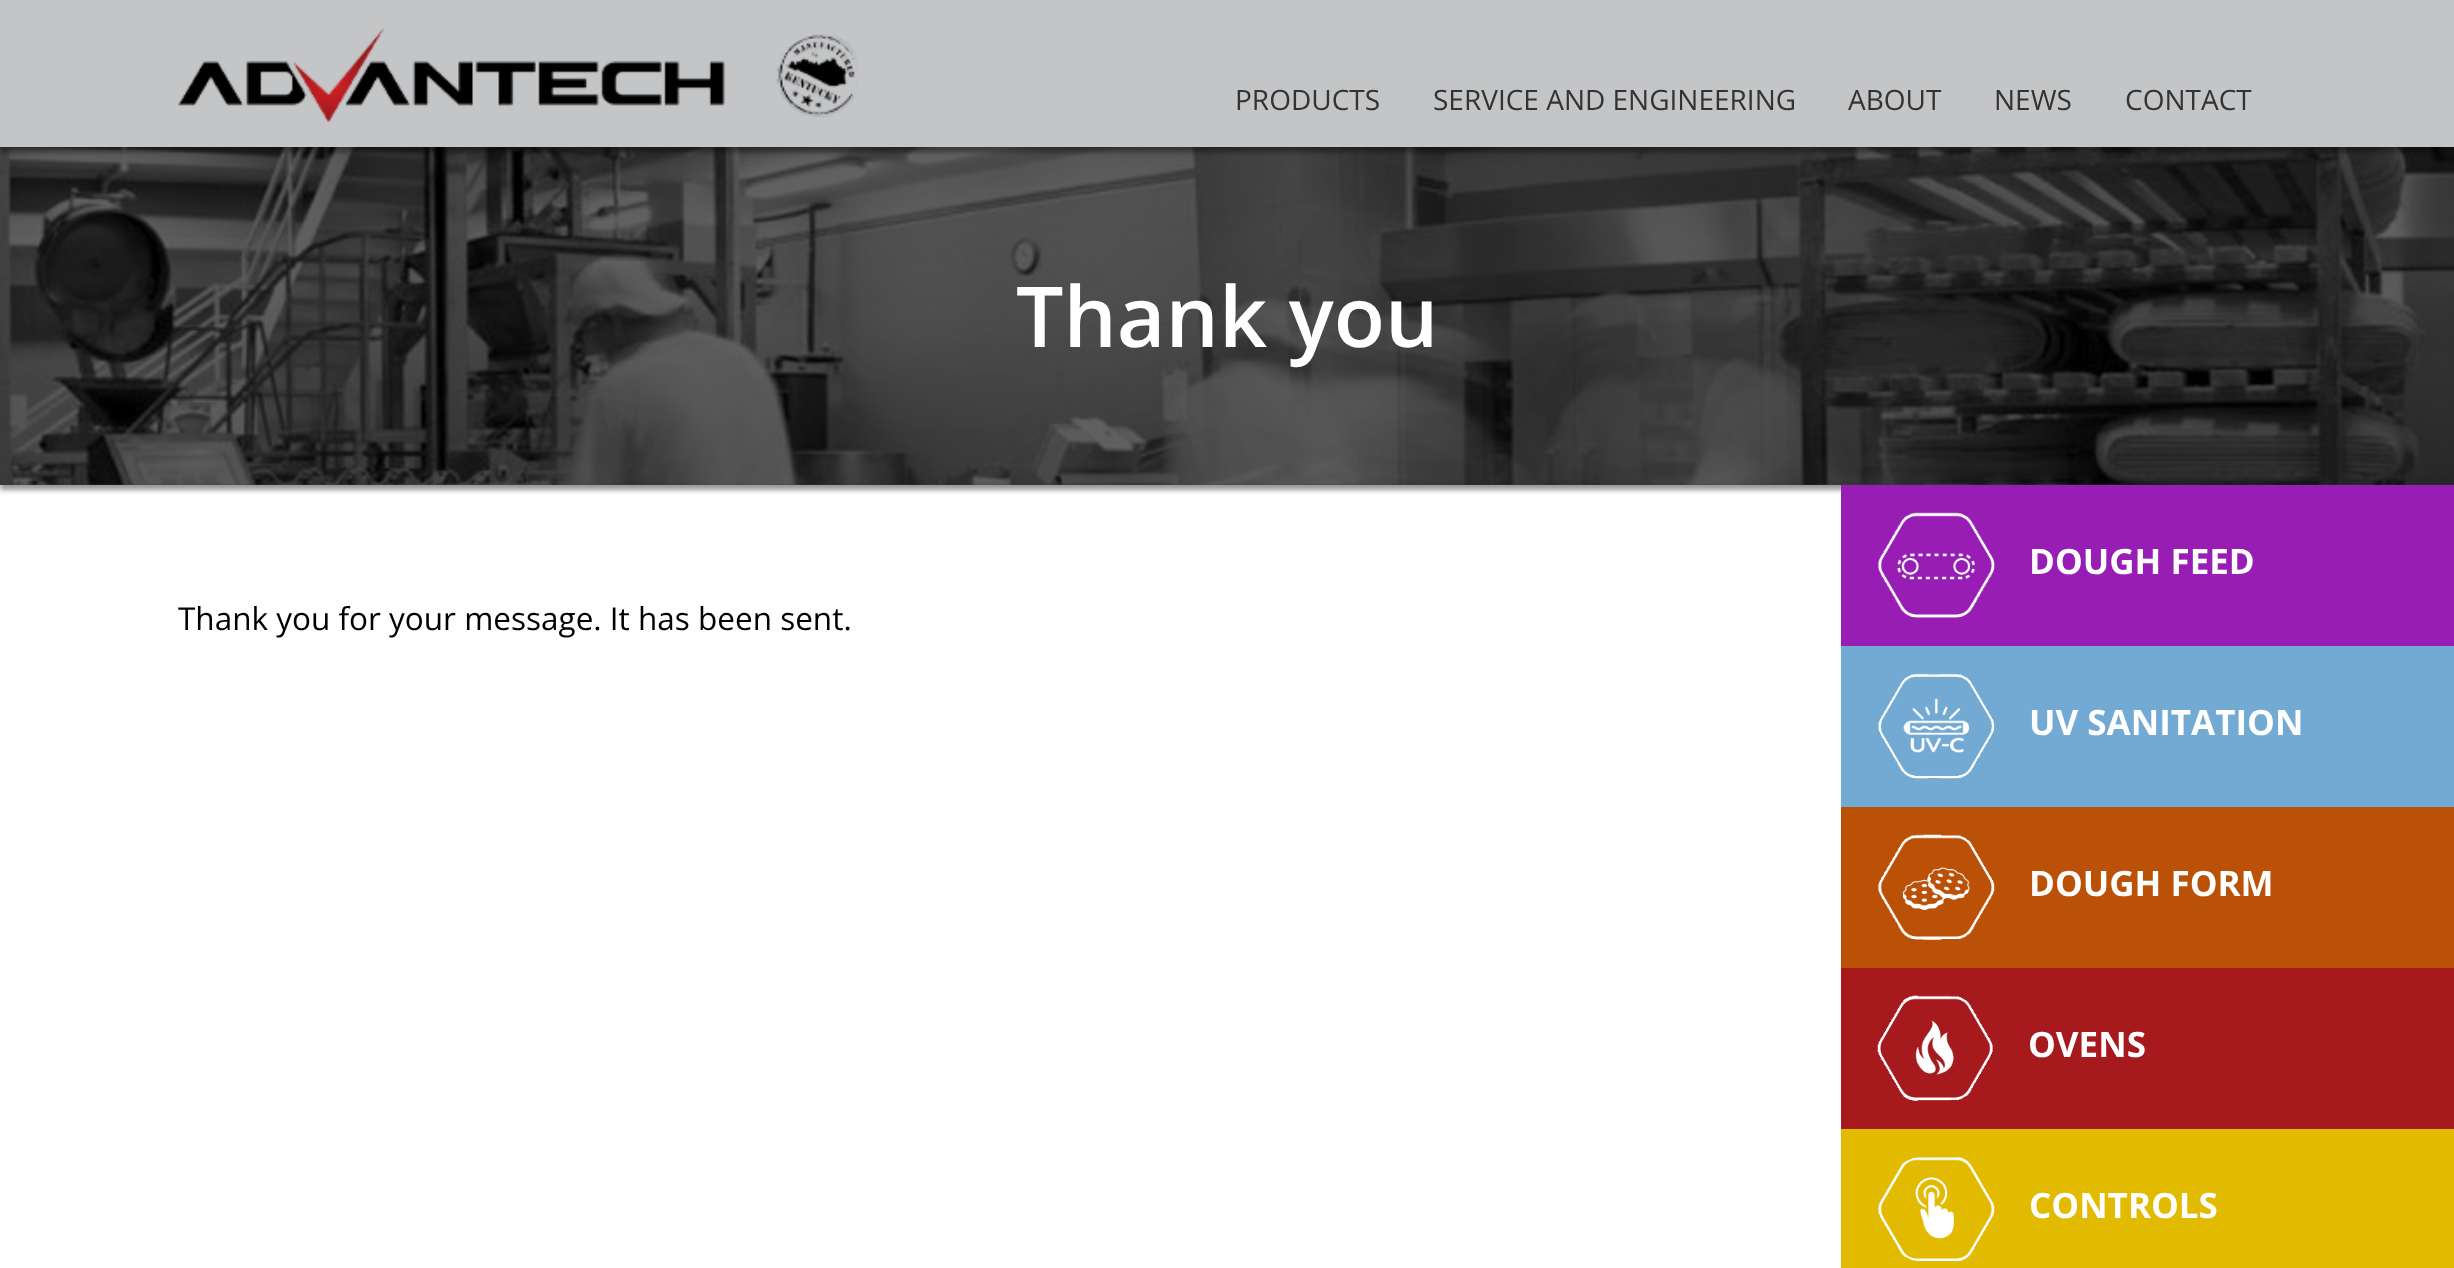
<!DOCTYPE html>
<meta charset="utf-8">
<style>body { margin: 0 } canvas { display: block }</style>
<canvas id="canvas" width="2454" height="1268"></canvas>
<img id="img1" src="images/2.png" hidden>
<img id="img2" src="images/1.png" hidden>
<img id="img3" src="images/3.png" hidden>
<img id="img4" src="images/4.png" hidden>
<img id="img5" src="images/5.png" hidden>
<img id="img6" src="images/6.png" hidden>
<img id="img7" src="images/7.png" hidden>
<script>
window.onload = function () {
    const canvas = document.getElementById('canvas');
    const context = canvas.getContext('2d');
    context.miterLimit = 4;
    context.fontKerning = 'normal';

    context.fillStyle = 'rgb(255, 255, 255)';
    context.fillRect(0, 0, 2454, 1268);
    context.fillStyle = 'rgba(0, 0, 0, 0.4)';
    context.filter = 'blur(2.5px)';
    context.beginPath();
    context.rect(0, 152, 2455, 338);
    context.fill();
    context.filter = 'none';
    context.drawImage(document.getElementById('img1'), 0, 147, 2454, 338);
    context.fillStyle = 'rgba(0, 0, 0, 0.62)';
    context.fillRect(0, 147, 2454, 338);
    context.fillStyle = 'rgba(0, 0, 0, 0.4)';
    context.filter = 'blur(2.5px)';
    context.beginPath();
    context.rect(0, 5, 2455, 147);
    context.fill();
    context.filter = 'none';
    context.fillStyle = 'rgb(196, 197, 199)';
    context.fillRect(0, 0, 2454, 147);
    context.drawImage(document.getElementById('img2'), 178, 27, 680, 96);
    context.fillStyle = 'rgb(151, 29, 180)';
    context.fillRect(1841, 485, 613, 161);
    context.drawImage(document.getElementById('img3'), 1877, 512, 118, 106);
    context.fillStyle = 'rgb(114, 170, 211)';
    context.fillRect(1841, 646, 613, 161);
    context.drawImage(document.getElementById('img4'), 1878, 673, 117, 106);
    context.fillStyle = 'rgb(186, 81, 7)';
    context.fillRect(1841, 807, 613, 161);
    context.drawImage(document.getElementById('img5'), 1877, 834, 118, 106);
    context.fillStyle = 'rgb(166, 25, 29)';
    context.fillRect(1841, 968, 613, 161);
    context.drawImage(document.getElementById('img6'), 1877, 995, 117, 106);
    context.fillStyle = 'rgb(226, 186, 0)';
    context.fillRect(1841, 1129, 613, 139);
    context.drawImage(document.getElementById('img7'), 1877, 1156, 118, 106);
    context.font = '28px Open Sans';
    context.fillStyle = 'rgb(51, 51, 51)';
    context.fillText('PRODUCTS', 1235, 110);
    context.fillText('SERVICE AND ENGINEERING', 1433, 110);
    context.fillText('ABOUT', 1848, 110);
    context.fillText('NEWS', 1994, 110);
    context.fillText('CONTACT', 2125, 110);
    context.font = '600 84px Open Sans';
    context.fillStyle = 'rgb(255, 255, 255)';
    context.fillText('Thank you', 1016, 347);
    context.font = '31.5px Open Sans';
    context.fillStyle = 'rgb(0, 0, 0)';
    context.fillText('Thank you for your message. It has been sent.', 178, 630);
    context.font = 'bold 35px Open Sans';
    context.fillStyle = 'rgb(255, 255, 255)';
    context.fillText('DOUGH FEED', 2029, 574);
    context.fillText('UV SANITATION', 2029, 735);
    context.fillText('DOUGH FORM', 2029, 896);
    context.fillText('OVENS', 2028, 1057);
    context.fillText('CONTROLS', 2029, 1218);
};
</script>
